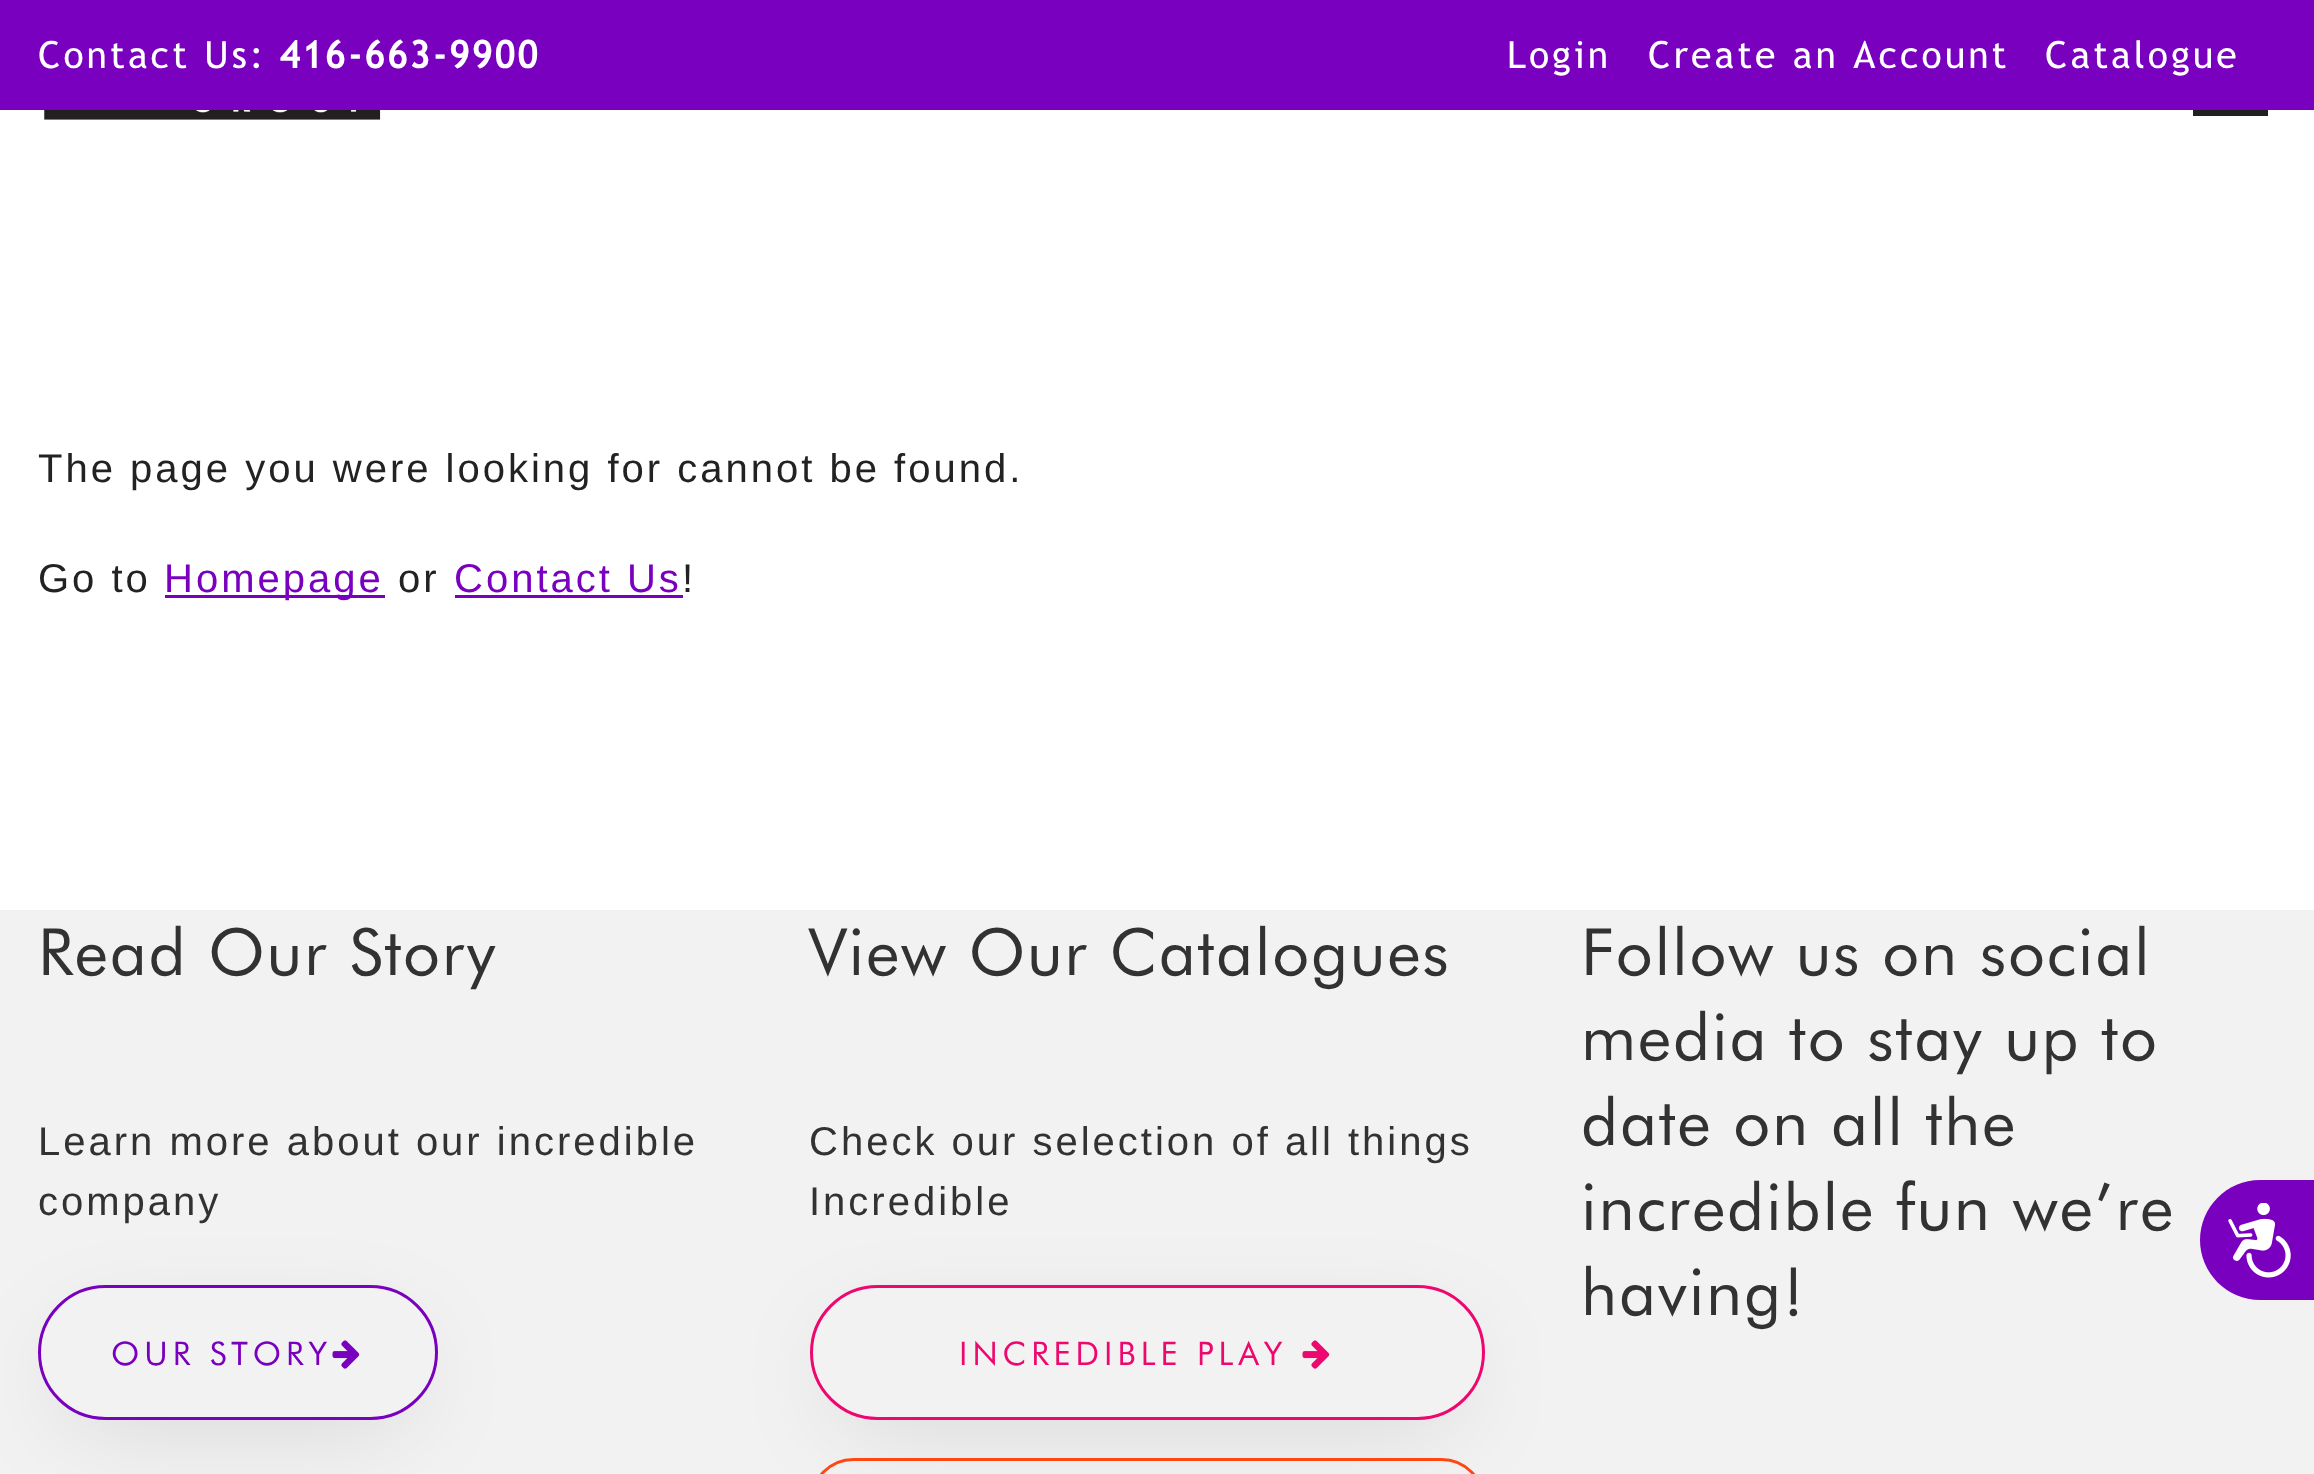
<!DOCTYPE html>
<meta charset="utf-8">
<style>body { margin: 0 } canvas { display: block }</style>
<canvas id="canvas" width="2314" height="1474"></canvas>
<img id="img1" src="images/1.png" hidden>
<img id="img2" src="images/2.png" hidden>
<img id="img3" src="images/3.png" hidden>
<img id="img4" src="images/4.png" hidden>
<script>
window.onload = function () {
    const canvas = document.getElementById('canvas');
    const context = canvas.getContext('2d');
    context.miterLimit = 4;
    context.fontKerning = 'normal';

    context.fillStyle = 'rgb(255, 255, 255)';
    context.fillRect(0, 0, 2314, 1474);
    context.fillStyle = 'rgb(121, 0, 190)';
    context.fillRect(0, 0, 2314, 110);
    context.drawImage(document.getElementById('img1'), 44, 110, 337, 10);
    context.fillStyle = 'rgb(33, 33, 33)';
    context.fillRect(2193, 110, 75, 6);
    context.fillStyle = 'rgb(121, 0, 190)';
    context.fillRect(165, 595, 220, 3);
    context.fillRect(455, 595, 228, 3);
    context.fillStyle = 'rgb(242, 242, 242)';
    context.fillRect(0, 910, 2314, 564);
    context.save();
    context.beginPath();
    context.moveTo(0, 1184);
    context.lineTo(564, 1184);
    context.lineTo(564, 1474);
    context.lineTo(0, 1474);
    context.closePath();
    context.moveTo(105.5, 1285);
    context.lineTo(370.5, 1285);
    context.bezierCurveTo(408, 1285, 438, 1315, 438, 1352.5);
    context.bezierCurveTo(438, 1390, 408, 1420, 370.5, 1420);
    context.lineTo(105.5, 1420);
    context.bezierCurveTo(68, 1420, 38, 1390, 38, 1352.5);
    context.bezierCurveTo(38, 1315, 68, 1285, 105.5, 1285);
    context.closePath();
    context.clip('evenodd');
    context.fillStyle = 'rgba(0, 0, 0, 0.12)';
    context.filter = 'blur(50px)';
    context.beginPath();
    context.roundRect(63, 1335, 350, 85, 42.5);
    context.fill();
    context.filter = 'none';
    context.restore();
    context.beginPath();
    context.roundRect(39.5, 1286.5, 397, 132, 66);
    context.strokeStyle = 'rgb(121, 0, 190)';
    context.lineWidth = 3;
    context.stroke();
    context.drawImage(document.getElementById('img2'), 332, 1340, 28, 29);
    context.save();
    context.beginPath();
    context.moveTo(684, 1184);
    context.lineTo(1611, 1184);
    context.lineTo(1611, 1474);
    context.lineTo(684, 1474);
    context.closePath();
    context.moveTo(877.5, 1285);
    context.lineTo(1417.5, 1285);
    context.bezierCurveTo(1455, 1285, 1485, 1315, 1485, 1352.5);
    context.bezierCurveTo(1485, 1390, 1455, 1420, 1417.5, 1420);
    context.lineTo(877.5, 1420);
    context.bezierCurveTo(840, 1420, 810, 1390, 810, 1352.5);
    context.bezierCurveTo(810, 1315, 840, 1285, 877.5, 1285);
    context.closePath();
    context.clip('evenodd');
    context.fillStyle = 'rgba(0, 0, 0, 0.12)';
    context.filter = 'blur(50px)';
    context.beginPath();
    context.roundRect(835, 1335, 625, 85, 42.5);
    context.fill();
    context.filter = 'none';
    context.restore();
    context.beginPath();
    context.roundRect(811.5, 1286.5, 672, 132, 66);
    context.strokeStyle = 'rgb(237, 7, 111)';
    context.stroke();
    context.drawImage(document.getElementById('img3'), 1302, 1340, 28, 29);
    context.beginPath();
    context.roundRect(811.5, 1459.5, 672, 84, 66);
    context.strokeStyle = 'rgb(255, 71, 19)';
    context.stroke();
    context.fillStyle = 'rgb(121, 0, 190)';
    context.beginPath();
    context.moveTo(2260, 1180);
    context.lineTo(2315, 1180);
    context.lineTo(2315, 1300);
    context.lineTo(2260, 1300);
    context.bezierCurveTo(2227, 1300, 2200, 1273, 2200, 1240);
    context.bezierCurveTo(2200, 1207, 2227, 1180, 2260, 1180);
    context.closePath();
    context.fill();
    context.drawImage(document.getElementById('img4'), 2228, 1203, 63, 75);
    context.letterSpacing = '3px';
    context.font = '37.5px Trebuchet MS';
    context.fillStyle = 'rgb(255, 255, 255)';
    context.fillText('Contact Us:', 38, 68);
    context.font = 'bold 37.5px Trebuchet MS';
    context.fillText('416-663-9900', 280, 68);
    context.font = '37.5px Trebuchet MS';
    context.fillText('Login', 1507, 68);
    context.fillText('Create an Account', 1648, 68);
    context.fillText('Catalogue', 2045, 68);
    context.font = '40px Liberation Sans';
    context.fillStyle = 'rgb(34, 34, 34)';
    context.fillText('The page you were looking for cannot be found.', 38, 482);
    context.fillText('Go to', 38, 592);
    context.fillStyle = 'rgb(121, 0, 190)';
    context.fillText('Homepage', 164, 592);
    context.fillStyle = 'rgb(34, 34, 34)';
    context.fillText('or', 398, 592);
    context.fillStyle = 'rgb(121, 0, 190)';
    context.fillText('Contact Us', 454, 592);
    context.fillStyle = 'rgb(34, 34, 34)';
    context.fillText('!', 682, 592);
    context.letterSpacing = '1.75px';
    context.font = '65px Futura';
    context.fillStyle = 'rgb(50, 50, 50)';
    context.fillText('Read Our Story', 38, 975);
    context.letterSpacing = '3px';
    context.font = '40px Liberation Sans';
    context.fillText('Learn more about our incredible', 38, 1155);
    context.fillText('company', 38, 1215);
    context.letterSpacing = '5px';
    context.font = '32.5px Futura';
    context.fillStyle = 'rgb(121, 0, 190)';
    context.fillText('OUR STORY', 111, 1365);
    context.letterSpacing = '1.75px';
    context.font = '65px Futura';
    context.fillStyle = 'rgb(50, 50, 50)';
    context.fillText('View Our Catalogues', 809, 975);
    context.letterSpacing = '3px';
    context.font = '40px Liberation Sans';
    context.fillText('Check our selection of all things', 809, 1155);
    context.fillText('Incredible', 809, 1215);
    context.letterSpacing = '5px';
    context.font = '32.5px Futura';
    context.fillStyle = 'rgb(237, 7, 111)';
    context.fillText('INCREDIBLE PLAY', 959, 1365);
    context.letterSpacing = '1.75px';
    context.font = '65px Futura';
    context.fillStyle = 'rgb(50, 50, 50)';
    context.fillText('Follow us on social', 1581, 975);
    context.fillText('media to stay up to', 1581, 1060);
    context.fillText('date on all the', 1581, 1145);
    context.fillText('incredible fun we’re', 1581, 1230);
    context.fillText('having!', 1581, 1315);
};
</script>
